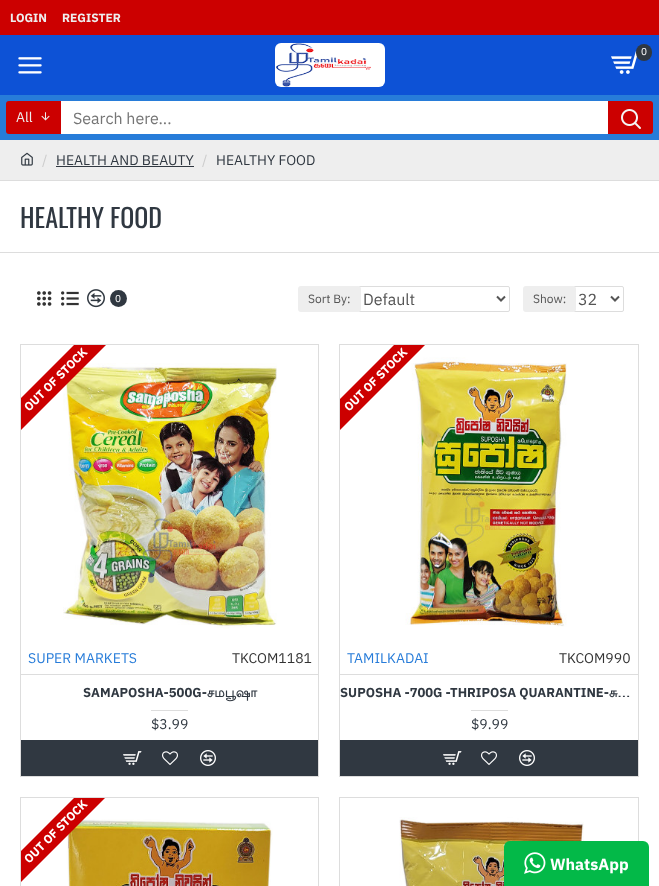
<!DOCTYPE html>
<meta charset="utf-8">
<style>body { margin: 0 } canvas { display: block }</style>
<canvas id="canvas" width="659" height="886"></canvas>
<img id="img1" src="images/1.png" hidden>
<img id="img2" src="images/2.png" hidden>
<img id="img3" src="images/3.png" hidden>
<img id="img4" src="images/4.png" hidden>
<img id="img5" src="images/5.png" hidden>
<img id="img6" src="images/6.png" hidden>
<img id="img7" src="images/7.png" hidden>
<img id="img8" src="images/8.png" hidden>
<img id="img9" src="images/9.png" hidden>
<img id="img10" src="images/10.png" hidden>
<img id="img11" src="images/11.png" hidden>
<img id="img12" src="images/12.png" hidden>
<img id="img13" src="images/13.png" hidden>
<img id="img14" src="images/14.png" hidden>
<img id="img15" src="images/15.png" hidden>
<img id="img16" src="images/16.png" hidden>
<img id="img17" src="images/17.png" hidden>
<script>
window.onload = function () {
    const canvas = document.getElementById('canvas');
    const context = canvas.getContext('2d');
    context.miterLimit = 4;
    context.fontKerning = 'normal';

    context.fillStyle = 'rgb(255, 255, 255)';
    context.fillRect(0, 0, 659, 886);
    context.fillStyle = 'rgb(204, 0, 0)';
    context.fillRect(0, 0, 659, 35);
    context.fillStyle = 'rgb(13, 82, 214)';
    context.fillRect(0, 35, 659, 60);
    context.fillStyle = 'rgb(255, 255, 255)';
    context.beginPath();
    context.roundRect(275, 43, 110, 44, 6);
    context.fill();
    context.drawImage(document.getElementById('img1'), 276, 43, 95, 44);
    context.drawImage(document.getElementById('img2'), 611, 51, 26, 23);
    context.fillStyle = 'rgb(48, 56, 65)';
    context.beginPath();
    context.roundRect(636, 44, 16, 17, 8);
    context.fill();
    context.drawImage(document.getElementById('img3'), 18, 57, 24, 17);
    context.fillStyle = 'rgb(39, 124, 217)';
    context.fillRect(0, 95, 659, 45);
    context.fillStyle = 'rgb(204, 0, 0)';
    context.beginPath();
    context.roundRect(6, 101, 55, 33, [3, 0, 0, 3]);
    context.fill();
    context.drawImage(document.getElementById('img4'), 41, 112, 9, 9);
    context.fillStyle = 'rgb(255, 255, 255)';
    context.fillRect(61, 101, 547, 33);
    context.fillStyle = 'rgb(204, 0, 0)';
    context.beginPath();
    context.roundRect(608, 101, 45, 33, [0, 3, 3, 0]);
    context.fill();
    context.drawImage(document.getElementById('img5'), 621, 109, 20, 20);
    context.fillStyle = 'rgb(238, 238, 238)';
    context.fillRect(0, 140, 659, 40);
    context.fillStyle = 'rgb(221, 221, 221)';
    context.fillRect(0, 180, 659, 1);
    context.drawImage(document.getElementById('img6'), 21, 152, 12, 14);
    context.fillStyle = 'rgb(48, 56, 65)';
    context.fillRect(56, 166, 138, 1);
    context.fillStyle = 'rgb(221, 221, 221)';
    context.fillRect(0, 252, 659, 1);
    context.drawImage(document.getElementById('img7'), 37, 291, 15, 15);
    context.drawImage(document.getElementById('img8'), 61, 291, 18, 15);
    context.drawImage(document.getElementById('img9'), 87, 289, 18, 19);
    context.fillStyle = 'rgb(48, 56, 65)';
    context.beginPath();
    context.arc(118.5, 298.5, 8.5, 0, 2 * Math.PI);
    context.fill();
    context.beginPath();
    context.roundRect(358.5, 286.5, 151, 25, 1.5);
    context.strokeStyle = 'rgb(221, 221, 221)';
    context.stroke();
    context.fillStyle = 'rgb(238, 238, 238)';
    context.beginPath();
    context.roundRect(298, 286, 63, 26, 3);
    context.fill();
    context.beginPath();
    context.moveTo(497, 296.5);
    context.lineTo(501, 300.5);
    context.lineTo(505, 296.5);
    context.strokeStyle = 'rgb(85, 85, 85)';
    context.lineWidth = 2;
    context.stroke();
    context.beginPath();
    context.roundRect(573.5, 286.5, 50, 25, 1.5);
    context.strokeStyle = 'rgb(221, 221, 221)';
    context.lineWidth = 1;
    context.stroke();
    context.beginPath();
    context.roundRect(523, 286, 53, 26, 3);
    context.fill();
    context.beginPath();
    context.moveTo(611, 296.5);
    context.lineTo(615, 300.5);
    context.lineTo(619, 296.5);
    context.strokeStyle = 'rgb(85, 85, 85)';
    context.lineWidth = 2;
    context.stroke();
    context.strokeStyle = 'rgb(221, 221, 221)';
    context.lineWidth = 1;
    context.strokeRect(20.5, 344.5, 298, 432);
    context.drawImage(document.getElementById('img10'), 63, 363, 214, 266);
    context.save();
    context.beginPath();
    context.rect(21, 345, 297, 298);
    context.clip();
    context.fillStyle = 'rgb(204, 0, 0)';
    context.beginPath();
    context.moveTo(-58, 477);
    context.lineTo(154, 265);
    context.lineTo(170, 281);
    context.lineTo(-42, 493);
    context.closePath();
    context.fill();
    context.restore();
    context.fillStyle = 'rgb(221, 221, 221)';
    context.fillRect(21, 674, 297, 1);
    context.fillRect(151, 710, 37, 1);
    context.fillStyle = 'rgb(48, 56, 65)';
    context.fillRect(21, 740, 297, 36);
    context.drawImage(document.getElementById('img11'), 123, 751, 19, 14);
    context.drawImage(document.getElementById('img12'), 162, 751, 16, 14);
    context.drawImage(document.getElementById('img13'), 200, 750, 16, 16);
    context.strokeRect(339.5, 344.5, 299, 432);
    context.drawImage(document.getElementById('img14'), 405, 357, 162, 270);
    context.save();
    context.beginPath();
    context.rect(340, 345, 298, 298);
    context.clip();
    context.fillStyle = 'rgb(204, 0, 0)';
    context.beginPath();
    context.moveTo(262, 477);
    context.lineTo(474, 265);
    context.lineTo(489, 281);
    context.lineTo(277, 493);
    context.closePath();
    context.fill();
    context.restore();
    context.fillStyle = 'rgb(221, 221, 221)';
    context.fillRect(340, 674, 298, 1);
    context.fillRect(471, 710, 37, 1);
    context.fillStyle = 'rgb(48, 56, 65)';
    context.fillRect(340, 740, 298, 36);
    context.drawImage(document.getElementById('img11'), 443, 751, 19, 14);
    context.drawImage(document.getElementById('img12'), 481, 751, 16, 14);
    context.drawImage(document.getElementById('img13'), 519, 750, 16, 16);
    context.strokeRect(20.5, 797.5, 298, 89);
    context.drawImage(document.getElementById('img15'), 66, 819, 207, 67);
    context.save();
    context.beginPath();
    context.rect(21, 798, 297, 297);
    context.clip();
    context.fillStyle = 'rgb(204, 0, 0)';
    context.beginPath();
    context.moveTo(-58, 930);
    context.lineTo(154, 718);
    context.lineTo(170, 733);
    context.lineTo(-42, 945);
    context.closePath();
    context.fill();
    context.restore();
    context.strokeRect(339.5, 797.5, 299, 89);
    context.drawImage(document.getElementById('img16'), 399, 817, 185, 69);
    context.fillStyle = 'rgb(3, 185, 72)';
    context.beginPath();
    context.roundRect(504, 841, 145, 45, [6, 6, 0, 0]);
    context.fill();
    context.drawImage(document.getElementById('img17'), 524, 852, 22, 22);
    context.font = 'bold 12px IBM Plex Sans';
    context.fillStyle = 'rgb(238, 238, 238)';
    context.fillText('LOGIN', 10, 22);
    context.fillText('REGISTER', 62, 22);
    context.font = '10px IBM Plex Sans';
    context.fillStyle = 'rgb(255, 255, 255)';
    context.fillText('0', 641, 55);
    context.font = '14px IBM Plex Sans';
    context.fillStyle = 'rgb(238, 238, 238)';
    context.fillText('All', 16, 122);
    context.font = '16px IBM Plex Sans';
    context.fillStyle = 'rgb(117, 117, 117)';
    context.fillText('Search here...', 73, 124);
    context.font = '14px IBM Plex Sans';
    context.fillStyle = 'rgb(204, 204, 204)';
    context.fillText('/', 42, 165);
    context.fillStyle = 'rgb(48, 56, 65)';
    context.fillText('HEALTH AND BEAUTY', 56, 165);
    context.fillStyle = 'rgb(204, 204, 204)';
    context.fillText('/', 202, 165);
    context.fillStyle = 'rgb(48, 56, 65)';
    context.fillText('HEALTHY FOOD', 216, 165);
    context.font = '26px Oswald';
    context.fillText('HEALTHY FOOD', 20, 228);
    context.font = '10px IBM Plex Sans';
    context.fillStyle = 'rgb(255, 255, 255)';
    context.fillText('0', 115, 302);
    context.font = '12px IBM Plex Sans';
    context.fillStyle = 'rgb(85, 85, 85)';
    context.fillText('Sort By:', 308, 303);
    context.font = '16px IBM Plex Sans';
    context.fillText('Default', 363, 305);
    context.font = '12px IBM Plex Sans';
    context.fillText('Show:', 533, 303);
    context.font = '16px IBM Plex Sans';
    context.fillText('32', 578, 305);
    context.font = 'bold 12px IBM Plex Sans';
    context.fillStyle = 'rgb(255, 255, 255)';
    context.save();
    context.translate(29, 412);
    context.rotate(-45 * Math.PI / 180);
    context.fillText('OUT OF STOCK', 0, 0);
    context.restore();
    context.font = '14px IBM Plex Sans';
    context.fillStyle = 'rgb(39, 124, 217)';
    context.fillText('SUPER MARKETS', 28, 663);
    context.fillStyle = 'rgb(51, 51, 51)';
    context.fillText('TKCOM1181', 232, 663);
    context.font = 'bold 13px IBM Plex Sans';
    context.fillStyle = 'rgb(48, 56, 65)';
    context.fillText('SAMAPOSHA-500G-', 83, 697);
    context.font = 'bold 13px Lohit Tamil';
    context.fillText('சமபூஷா', 207, 697);
    context.font = '14px IBM Plex Sans';
    context.fillText('$3.99', 151, 729);
    context.font = 'bold 12px IBM Plex Sans';
    context.fillStyle = 'rgb(255, 255, 255)';
    context.save();
    context.translate(349, 412);
    context.rotate(-45 * Math.PI / 180);
    context.fillText('OUT OF STOCK', 0, 0);
    context.restore();
    context.font = '14px IBM Plex Sans';
    context.fillStyle = 'rgb(39, 124, 217)';
    context.fillText('TAMILKADAI', 347, 663);
    context.fillStyle = 'rgb(51, 51, 51)';
    context.fillText('TKCOM990', 559, 663);
    context.font = 'bold 13px IBM Plex Sans';
    context.fillStyle = 'rgb(48, 56, 65)';
    context.fillText('SUPOSHA -700G -THRIPOSA QUARANTINE-', 340, 697);
    context.font = 'bold 13px Lohit Tamil';
    context.fillText('சு…', 609, 697);
    context.font = '14px IBM Plex Sans';
    context.fillText('$9.99', 471, 729);
    context.font = 'bold 12px IBM Plex Sans';
    context.fillStyle = 'rgb(255, 255, 255)';
    context.save();
    context.translate(29, 864);
    context.rotate(-45 * Math.PI / 180);
    context.fillText('OUT OF STOCK', 0, 0);
    context.restore();
    context.font = 'bold 16px IBM Plex Sans';
    context.fillText('WhatsApp', 550, 870);
};
</script>
